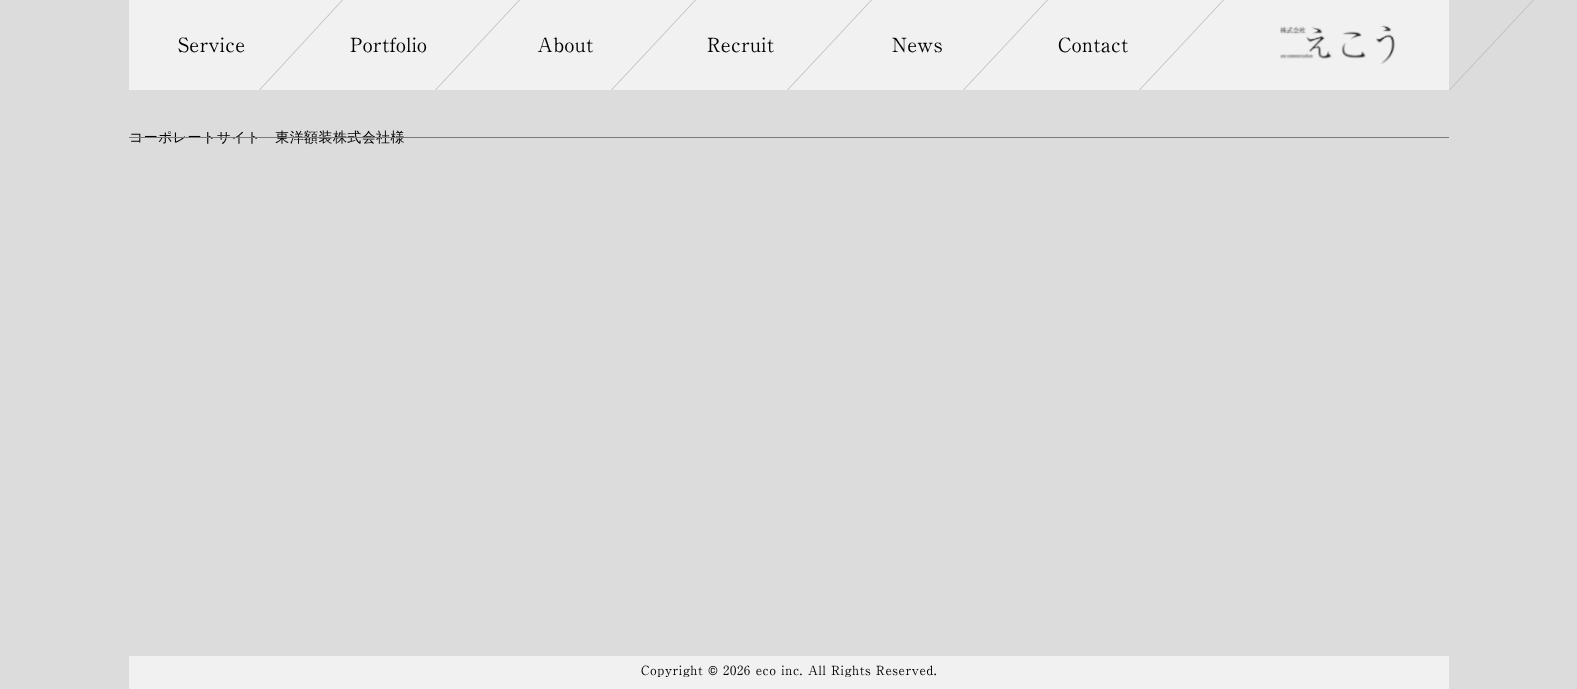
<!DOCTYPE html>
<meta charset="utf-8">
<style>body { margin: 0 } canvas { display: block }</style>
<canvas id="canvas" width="1577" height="689"></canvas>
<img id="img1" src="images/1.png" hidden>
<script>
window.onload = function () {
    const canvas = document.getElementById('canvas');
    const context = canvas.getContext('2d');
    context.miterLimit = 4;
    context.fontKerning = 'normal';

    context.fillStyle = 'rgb(220, 220, 220)';
    context.fillRect(0, 0, 1577, 689);
    context.fillStyle = 'rgb(241, 241, 241)';
    context.fillRect(129, 0, 1320, 90);
    context.fillStyle = 'rgb(187, 187, 187)';
    context.beginPath();
    context.moveTo(342, 0);
    context.lineTo(343, 0);
    context.lineTo(260, 90);
    context.lineTo(259, 90);
    context.closePath();
    context.fill();
    context.beginPath();
    context.moveTo(519, 0);
    context.lineTo(520, 0);
    context.lineTo(436, 90);
    context.lineTo(435, 90);
    context.closePath();
    context.fill();
    context.beginPath();
    context.moveTo(695, 0);
    context.lineTo(696, 0);
    context.lineTo(612, 90);
    context.lineTo(611, 90);
    context.closePath();
    context.fill();
    context.beginPath();
    context.moveTo(871, 0);
    context.lineTo(872, 0);
    context.lineTo(788, 90);
    context.lineTo(787, 90);
    context.closePath();
    context.fill();
    context.beginPath();
    context.moveTo(1047, 0);
    context.lineTo(1048, 0);
    context.lineTo(964, 90);
    context.lineTo(963, 90);
    context.closePath();
    context.fill();
    context.beginPath();
    context.moveTo(1223, 0);
    context.lineTo(1224, 0);
    context.lineTo(1140, 90);
    context.lineTo(1139, 90);
    context.closePath();
    context.fill();
    context.beginPath();
    context.moveTo(1533, 0);
    context.lineTo(1534, 0);
    context.lineTo(1450, 90);
    context.lineTo(1449, 90);
    context.closePath();
    context.fill();
    context.drawImage(document.getElementById('img1'), 1279, 25, 116, 39);
    context.fillStyle = 'rgb(241, 241, 241)';
    context.fillRect(129, 656, 1320, 33);
    context.letterSpacing = '0.4px';
    context.font = '19.5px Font';
    context.fillStyle = 'rgb(0, 0, 0)';
    context.fillText('Service', 178, 52);
    context.fillText('Portfolio', 350, 52);
    context.fillText('About', 537, 52);
    context.fillText('Recruit', 707, 52);
    context.fillText('News', 892, 52);
    context.fillText('Contact', 1058, 52);
    context.font = '500 14px WenQuanYi Zen Hei';
    context.fillText('コーポレートサイト　東洋額装株式会社様', 129, 142);
    context.fillStyle = 'rgb(122, 122, 122)';
    context.fillRect(129, 137, 1320, 1);
    context.letterSpacing = '0.65px';
    context.font = '12.6px Font';
    context.fillStyle = 'rgb(0, 0, 0)';
    context.fillText('Copyright', 641, 675);
    context.font = '500 12.6px Roboto';
    context.fillText('©', 708, 675);
    context.font = '12.6px Font';
    context.fillText('2026 eco inc. All Rights Reserved.', 723, 675);
};
</script>
